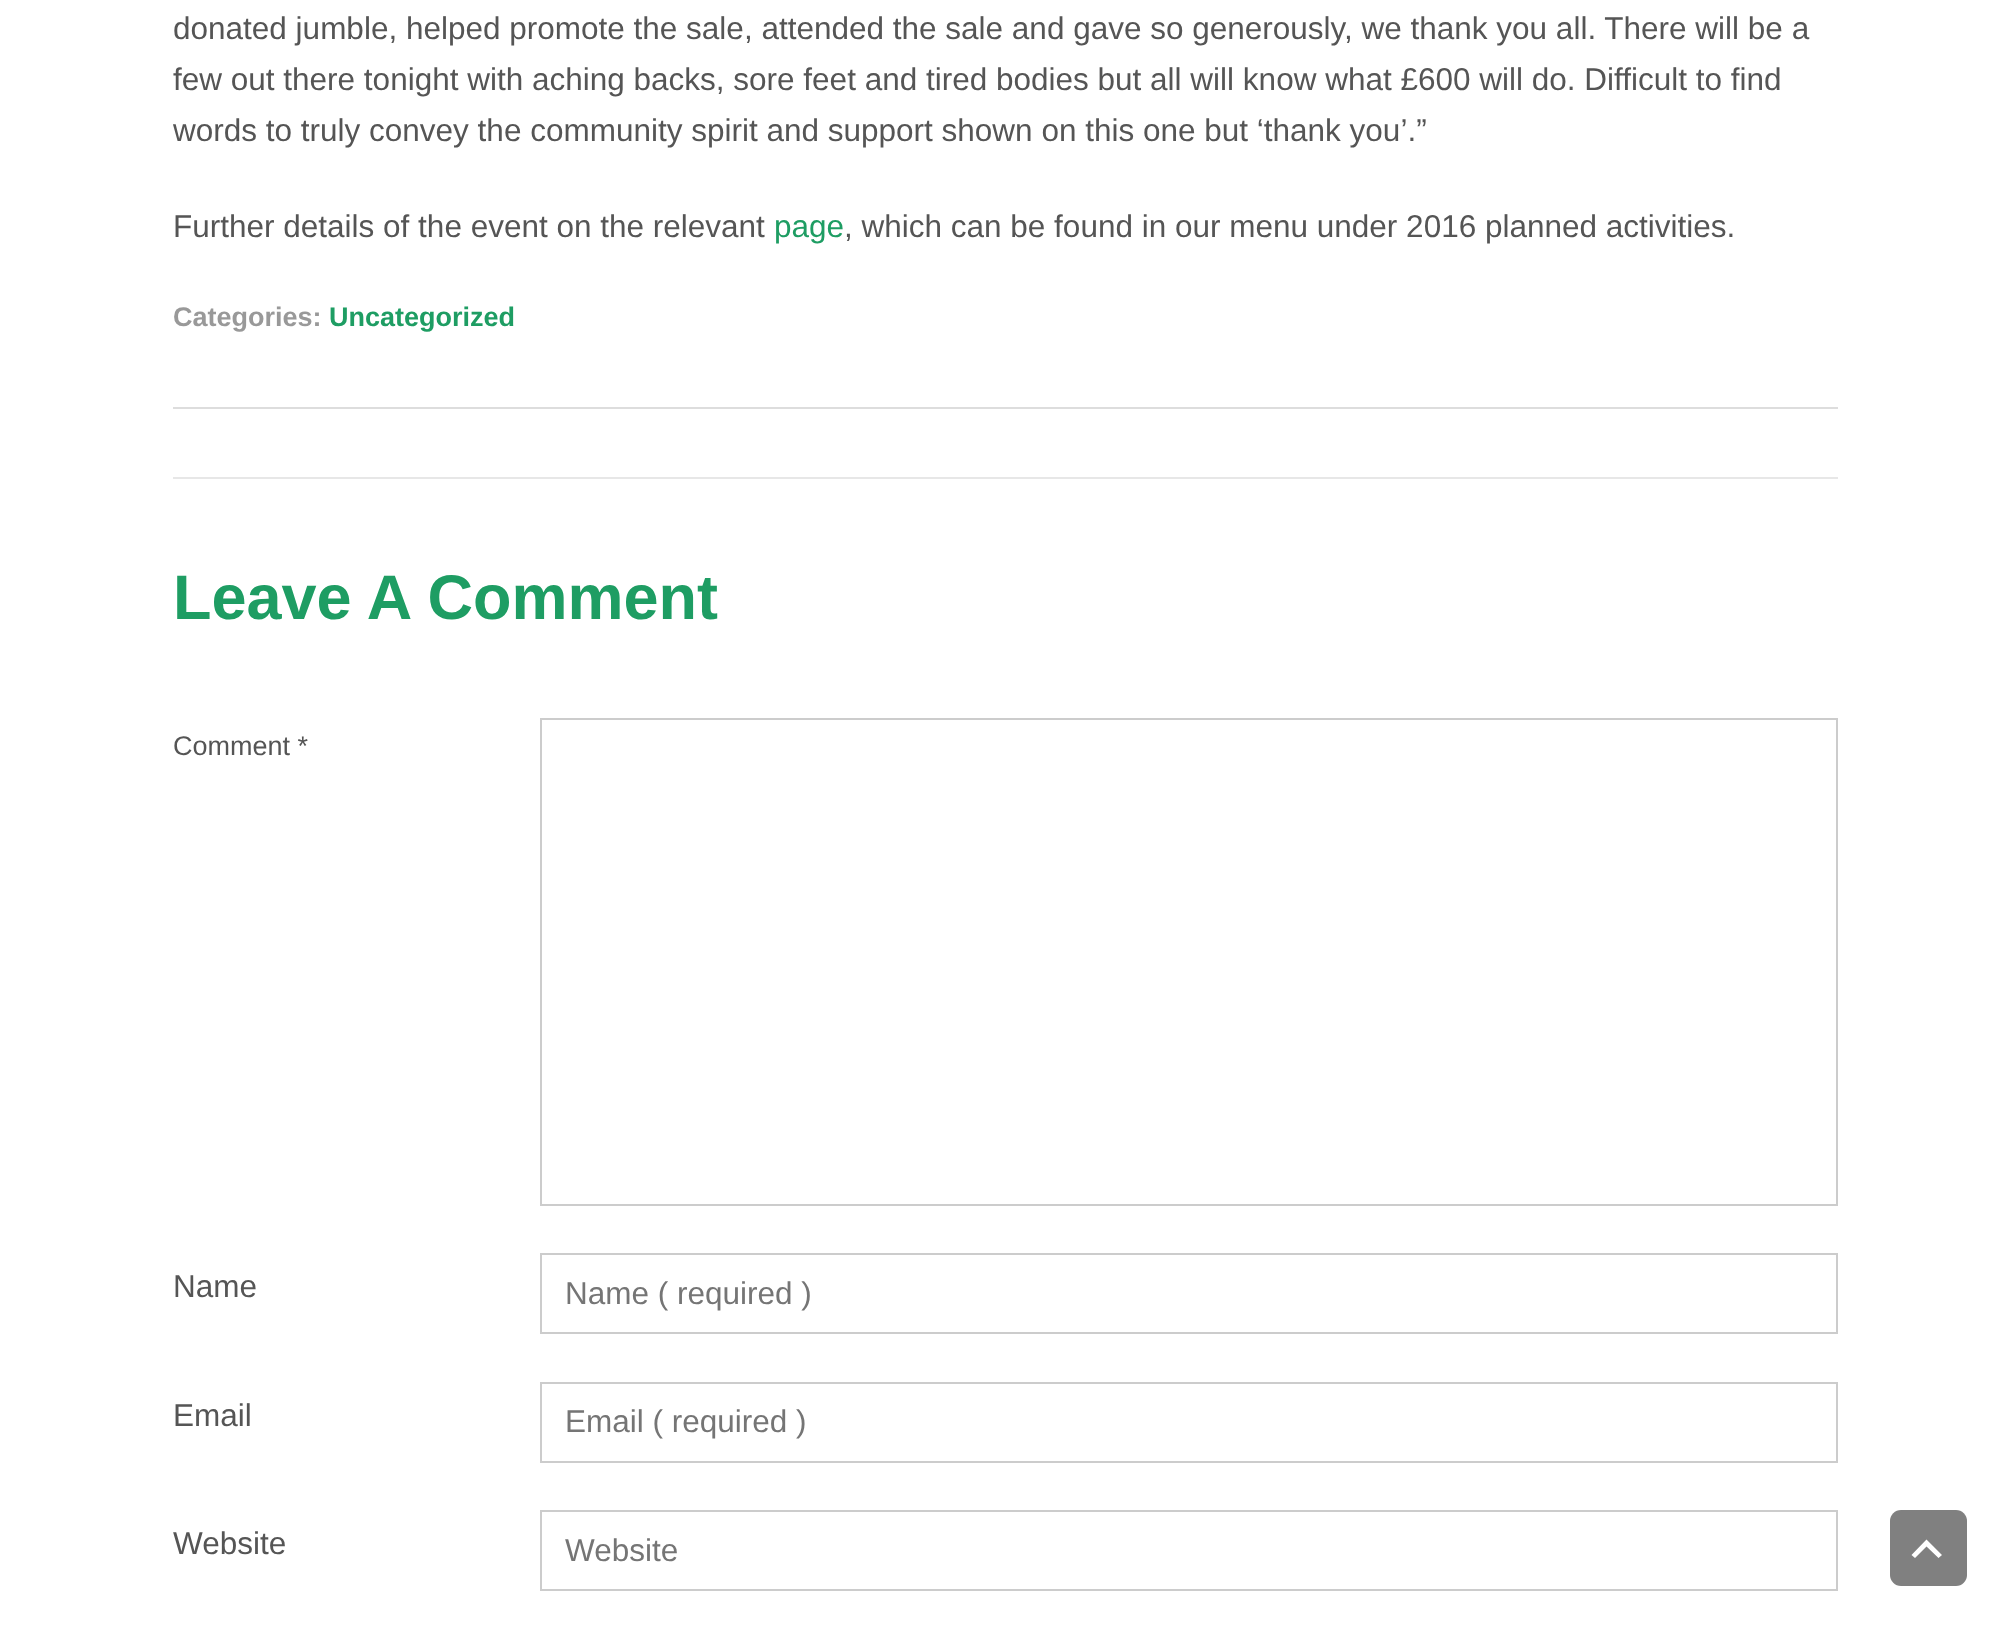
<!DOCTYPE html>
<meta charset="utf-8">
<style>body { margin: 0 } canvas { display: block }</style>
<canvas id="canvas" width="2010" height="1630"></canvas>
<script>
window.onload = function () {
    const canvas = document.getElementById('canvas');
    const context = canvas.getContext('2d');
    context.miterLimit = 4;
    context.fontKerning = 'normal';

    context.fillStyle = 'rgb(255, 255, 255)';
    context.fillRect(0, 0, 2010, 1630);
    context.fillStyle = 'rgb(221, 221, 221)';
    context.fillRect(173, 407, 1665, 2);
    context.fillStyle = 'rgb(231, 231, 231)';
    context.fillRect(173, 477, 1665, 2);
    context.strokeStyle = 'rgb(204, 204, 204)';
    context.lineWidth = 2;
    context.strokeRect(541, 719, 1296, 486);
    context.strokeRect(541, 1254, 1296, 79);
    context.strokeRect(541, 1383, 1296, 79);
    context.strokeRect(541, 1511, 1296, 79);
    context.fillStyle = 'rgb(128, 128, 128)';
    context.beginPath();
    context.roundRect(1890, 1510, 77, 76, 11);
    context.fill();
    context.fillStyle = 'rgb(255, 255, 255)';
    context.beginPath();
    context.moveTo(1938.5, 1558);
    context.lineTo(1926.5, 1546.5);
    context.lineTo(1915, 1558);
    context.lineTo(1911.5, 1555);
    context.lineTo(1926.5, 1539.5);
    context.lineTo(1942, 1555);
    context.closePath();
    context.fill();
    context.font = '31.5px Liberation Sans';
    context.fillStyle = 'rgb(85, 85, 85)';
    context.fillText('donated jumble, helped promote the sale, attended the sale and gave so generously, we thank you all. There will be a', 173, 39);
    context.fillText('few out there tonight with aching backs, sore feet and tired bodies but all will know what £600 will do. Difficult to find', 173, 90);
    context.fillText('words to truly convey the community spirit and support shown on this one but ‘thank you’.”', 173, 141);
    context.fillText('Further details of the event on the relevant', 173, 237);
    context.fillStyle = 'rgb(30, 157, 99)';
    context.fillText('page', 774, 237);
    context.fillStyle = 'rgb(85, 85, 85)';
    context.fillText(', which can be found in our menu under 2016 planned activities.', 844, 237);
    context.font = 'bold 27px Liberation Sans';
    context.fillStyle = 'rgb(153, 153, 153)';
    context.fillText('Categories:', 173, 326);
    context.fillStyle = 'rgb(30, 157, 99)';
    context.fillText('Uncategorized', 329, 326);
    context.font = 'bold 63px Liberation Sans';
    context.fillText('Leave A Comment', 173, 619);
    context.font = '27px Liberation Sans';
    context.fillStyle = 'rgb(85, 85, 85)';
    context.fillText('Comment *', 173, 755);
    context.font = '31.5px Liberation Sans';
    context.fillText('Name', 173, 1297);
    context.fillStyle = 'rgb(117, 117, 117)';
    context.fillText('Name ( required )', 565, 1304);
    context.fillStyle = 'rgb(85, 85, 85)';
    context.fillText('Email', 173, 1426);
    context.fillStyle = 'rgb(117, 117, 117)';
    context.fillText('Email ( required )', 565, 1432);
    context.fillStyle = 'rgb(85, 85, 85)';
    context.fillText('Website', 173, 1554);
    context.fillStyle = 'rgb(117, 117, 117)';
    context.fillText('Website', 565, 1561);
};
</script>
